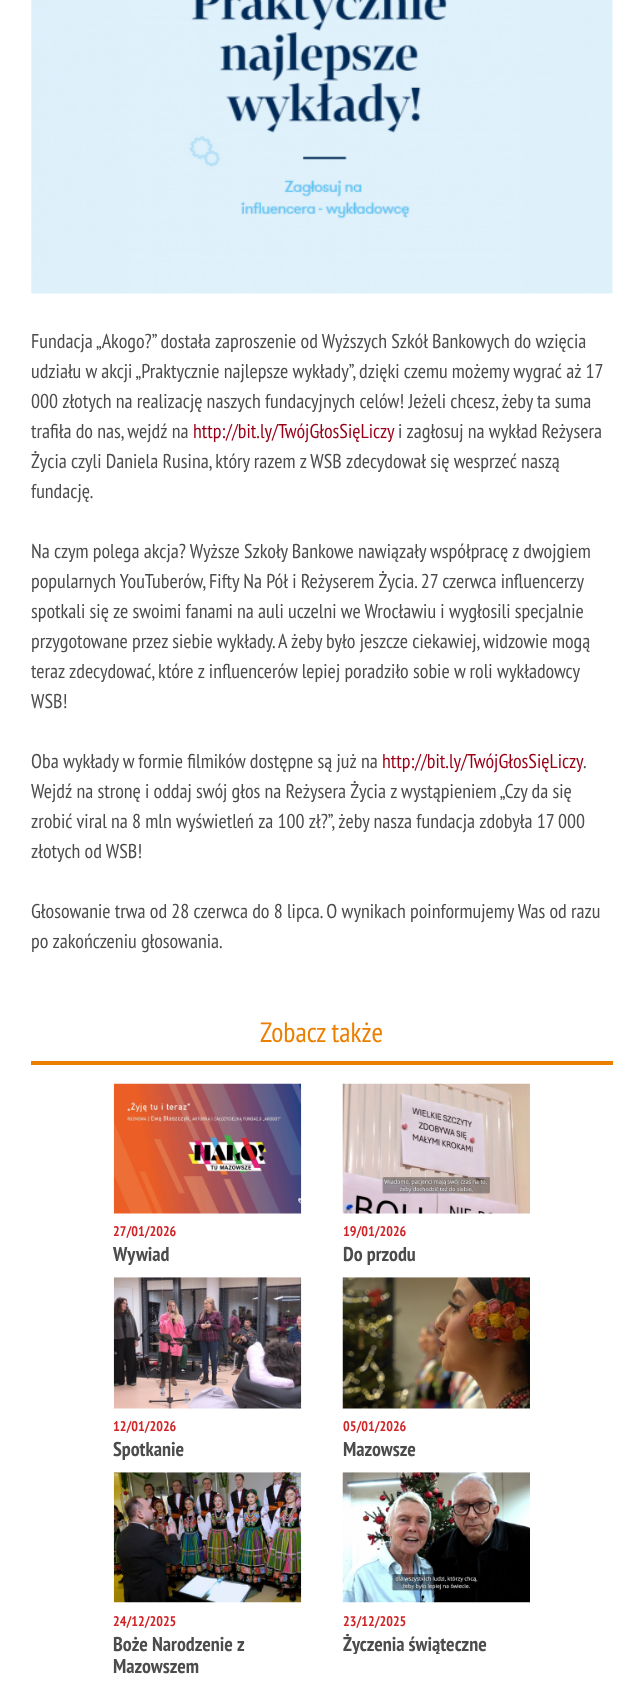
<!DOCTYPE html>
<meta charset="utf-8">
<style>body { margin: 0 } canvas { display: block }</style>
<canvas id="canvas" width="643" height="1694"></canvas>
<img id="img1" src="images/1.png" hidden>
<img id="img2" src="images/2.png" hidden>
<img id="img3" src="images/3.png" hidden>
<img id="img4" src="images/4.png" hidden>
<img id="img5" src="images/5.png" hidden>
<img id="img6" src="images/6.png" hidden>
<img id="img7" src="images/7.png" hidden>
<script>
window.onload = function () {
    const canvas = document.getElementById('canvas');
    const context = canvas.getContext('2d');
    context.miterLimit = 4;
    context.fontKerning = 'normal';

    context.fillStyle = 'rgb(255, 255, 255)';
    context.fillRect(0, 0, 643, 1694);
    context.drawImage(document.getElementById('img1'), 31, 0, 582, 294);
    context.fillStyle = 'rgb(235, 127, 0)';
    context.fillRect(31, 1061, 582, 4);
    context.drawImage(document.getElementById('img2'), 113, 1083, 189, 131);
    context.drawImage(document.getElementById('img3'), 342, 1083, 188, 131);
    context.drawImage(document.getElementById('img4'), 113, 1277, 189, 132);
    context.drawImage(document.getElementById('img5'), 342, 1277, 188, 132);
    context.drawImage(document.getElementById('img6'), 113, 1472, 189, 131);
    context.drawImage(document.getElementById('img7'), 342, 1472, 188, 131);
    context.font = '20px PT Sans Narrow';
    context.fillStyle = 'rgb(76, 76, 76)';
    context.fillText('Fundacja „Akogo?” dostała zaproszenie od Wyższych Szkół Bankowych do wzięcia', 31, 348);
    context.fillText('udziału w akcji „Praktycznie najlepsze wykłady”, dzięki czemu możemy wygrać aż 17', 31, 378);
    context.fillText('000 złotych na realizację naszych fundacyjnych celów! Jeżeli chcesz, żeby ta suma', 31, 408);
    context.fillText('trafiła do nas, wejdź na', 31, 438);
    context.fillStyle = 'rgb(152, 0, 24)';
    context.fillText('http://bit.ly/TwójGłosSięLiczy', 193, 438);
    context.fillStyle = 'rgb(76, 76, 76)';
    context.fillText('i zagłosuj na wykład Reżysera', 398, 438);
    context.fillText('Życia czyli Daniela Rusina, który razem z WSB zdecydował się wesprzeć naszą', 31, 468);
    context.fillText('fundację.', 31, 498);
    context.fillText('Na czym polega akcja? Wyższe Szkoły Bankowe nawiązały współpracę z dwojgiem', 31, 558);
    context.fillText('popularnych YouTuberów, Fifty Na Pół i Reżyserem Życia. 27 czerwca influencerzy', 31, 588);
    context.fillText('spotkali się ze swoimi fanami na auli uczelni we Wrocławiu i wygłosili specjalnie', 31, 618);
    context.fillText('przygotowane przez siebie wykłady. A żeby było jeszcze ciekawiej, widzowie mogą', 31, 648);
    context.fillText('teraz zdecydować, które z influencerów lepiej poradziło sobie w roli wykładowcy', 31, 678);
    context.fillText('WSB!', 31, 708);
    context.fillText('Oba wykłady w formie filmików dostępne są już na', 31, 768);
    context.fillStyle = 'rgb(152, 0, 24)';
    context.fillText('http://bit.ly/TwójGłosSięLiczy', 382, 768);
    context.fillStyle = 'rgb(76, 76, 76)';
    context.fillText('.', 583, 768);
    context.fillText('Wejdź na stronę i oddaj swój głos na Reżysera Życia z wystąpieniem „Czy da się', 31, 798);
    context.fillText('zrobić viral na 8 mln wyświetleń za 100 zł?”, żeby nasza fundacja zdobyła 17 000', 31, 828);
    context.fillText('złotych od WSB!', 31, 858);
    context.fillText('Głosowanie trwa od 28 czerwca do 8 lipca. O wynikach poinformujemy Was od razu', 31, 918);
    context.fillText('po zakończeniu głosowania.', 31, 948);
    context.font = '28px PT Sans Narrow';
    context.fillStyle = 'rgb(235, 127, 0)';
    context.fillText('Zobacz także', 260, 1042);
    context.font = 'bold 14px PT Sans Narrow';
    context.fillStyle = 'rgb(209, 36, 39)';
    context.fillText('27/01/2026', 113, 1236);
    context.font = 'bold 20px PT Sans Narrow';
    context.fillStyle = 'rgb(76, 76, 76)';
    context.fillText('Wywiad', 113, 1261);
    context.font = 'bold 14px PT Sans Narrow';
    context.fillStyle = 'rgb(209, 36, 39)';
    context.fillText('19/01/2026', 343, 1236);
    context.font = 'bold 20px PT Sans Narrow';
    context.fillStyle = 'rgb(76, 76, 76)';
    context.fillText('Do przodu', 343, 1261);
    context.font = 'bold 14px PT Sans Narrow';
    context.fillStyle = 'rgb(209, 36, 39)';
    context.fillText('12/01/2026', 113, 1431);
    context.font = 'bold 20px PT Sans Narrow';
    context.fillStyle = 'rgb(76, 76, 76)';
    context.fillText('Spotkanie', 113, 1456);
    context.font = 'bold 14px PT Sans Narrow';
    context.fillStyle = 'rgb(209, 36, 39)';
    context.fillText('05/01/2026', 343, 1431);
    context.font = 'bold 20px PT Sans Narrow';
    context.fillStyle = 'rgb(76, 76, 76)';
    context.fillText('Mazowsze', 343, 1456);
    context.font = 'bold 14px PT Sans Narrow';
    context.fillStyle = 'rgb(209, 36, 39)';
    context.fillText('24/12/2025', 113, 1626);
    context.font = 'bold 20px PT Sans Narrow';
    context.fillStyle = 'rgb(76, 76, 76)';
    context.fillText('Boże Narodzenie z', 113, 1651);
    context.fillText('Mazowszem', 113, 1673);
    context.font = 'bold 14px PT Sans Narrow';
    context.fillStyle = 'rgb(209, 36, 39)';
    context.fillText('23/12/2025', 343, 1626);
    context.save();
    context.beginPath();
    context.rect(324, 1473, 225, 181);
    context.clip();
    context.font = 'bold 20px PT Sans Narrow';
    context.fillStyle = 'rgb(76, 76, 76)';
    context.fillText('Życzenia świąteczne', 343, 1651);
    context.restore();
};
</script>
